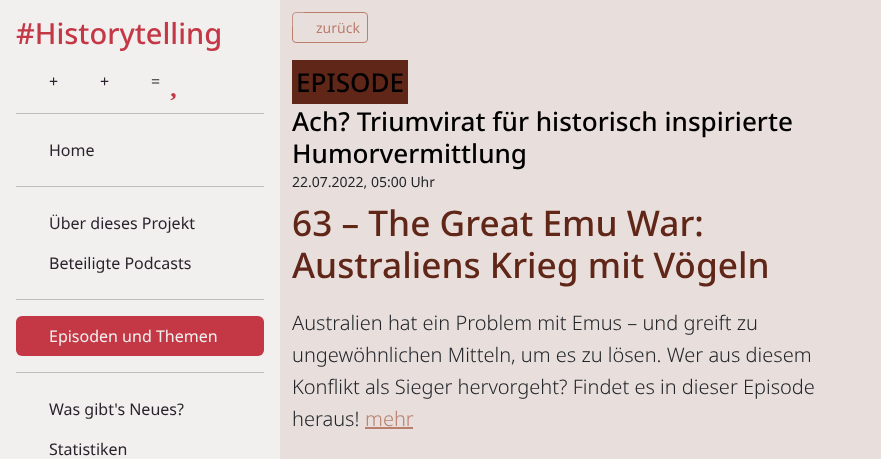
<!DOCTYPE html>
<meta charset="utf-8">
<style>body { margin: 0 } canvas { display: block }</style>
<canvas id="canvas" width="881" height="459"></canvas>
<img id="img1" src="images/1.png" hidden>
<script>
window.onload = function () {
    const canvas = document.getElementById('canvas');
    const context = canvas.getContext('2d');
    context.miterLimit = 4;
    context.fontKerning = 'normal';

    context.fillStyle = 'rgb(241, 240, 239)';
    context.fillRect(0, 0, 881, 459);
    context.drawImage(document.getElementById('img1'), 170, 93, 6, 8);
    context.fillStyle = 'rgb(189, 189, 190)';
    context.fillRect(16, 113, 248, 1);
    context.fillRect(16, 186, 248, 1);
    context.fillRect(16, 299, 248, 1);
    context.fillStyle = 'rgb(196, 56, 70)';
    context.beginPath();
    context.roundRect(16, 316, 248, 40, 6);
    context.fill();
    context.fillStyle = 'rgb(189, 189, 190)';
    context.fillRect(16, 372, 248, 1);
    context.fillStyle = 'rgb(232, 223, 221)';
    context.fillRect(280, 0, 601, 459);
    context.beginPath();
    context.roundRect(292.5, 12.5, 75, 30, 3.5);
    context.strokeStyle = 'rgb(186, 126, 109)';
    context.stroke();
    context.fillStyle = 'rgba(222, 222, 222, 0.22)';
    context.fillRect(292, 12, 12, 15);
    context.fillStyle = 'rgb(96, 38, 24)';
    context.fillRect(292, 60, 116, 44);
    context.fillStyle = 'rgb(186, 126, 109)';
    context.fillRect(365, 427, 48, 2);
    context.font = '500 29px Noto Sans';
    context.fillStyle = 'rgb(196, 56, 70)';
    context.fillText('#Historytelling', 16, 44);
    context.font = '16px Noto Sans';
    context.fillStyle = 'rgb(42, 35, 45)';
    context.fillText('+', 49, 87);
    context.fillText('+', 100, 87);
    context.fillText('=', 151, 87);
    context.fillText('Home', 49, 156);
    context.fillText('Über dieses Projekt', 49, 229);
    context.fillText('Beteiligte Podcasts', 49, 269);
    context.fillStyle = 'rgb(241, 240, 239)';
    context.fillText('Episoden und Themen', 49, 342);
    context.fillStyle = 'rgb(42, 35, 45)';
    context.fillText('Was gibt\'s Neues?', 49, 415);
    context.fillText('Statistiken', 49, 455);
    context.font = '14px Noto Sans';
    context.fillStyle = 'rgb(186, 126, 109)';
    context.fillText('zurück', 316, 33);
    context.font = '500 26.1px Noto Sans';
    context.fillStyle = 'rgb(0, 0, 0)';
    context.fillText('EPISODE', 296, 92);
    context.fillText('Ach? Triumvirat für historisch inspirierte', 292, 131);
    context.fillText('Humorvermittlung', 292, 163);
    context.font = '14px Noto Sans';
    context.fillStyle = 'rgb(33, 37, 41)';
    context.fillText('22.07.2022, 05:00 Uhr', 292, 187);
    context.font = '500 35.25px Noto Sans';
    context.fillStyle = 'rgb(96, 38, 24)';
    context.fillText('63 – The Great Emu War:', 292, 236);
    context.fillText('Australiens Krieg mit Vögeln', 292, 278);
    context.font = '300 20px Noto Sans';
    context.fillStyle = 'rgb(33, 37, 41)';
    context.fillText('Australien hat ein Problem mit Emus – und greift zu', 292, 330);
    context.fillText('ungewöhnlichen Mitteln, um es zu lösen. Wer aus diesem', 292, 362);
    context.fillText('Konflikt als Sieger hervorgeht? Findet es in dieser Episode', 292, 394);
    context.fillText('heraus!', 292, 426);
    context.fillStyle = 'rgb(186, 126, 109)';
    context.fillText('mehr', 365, 426);
};
</script>
